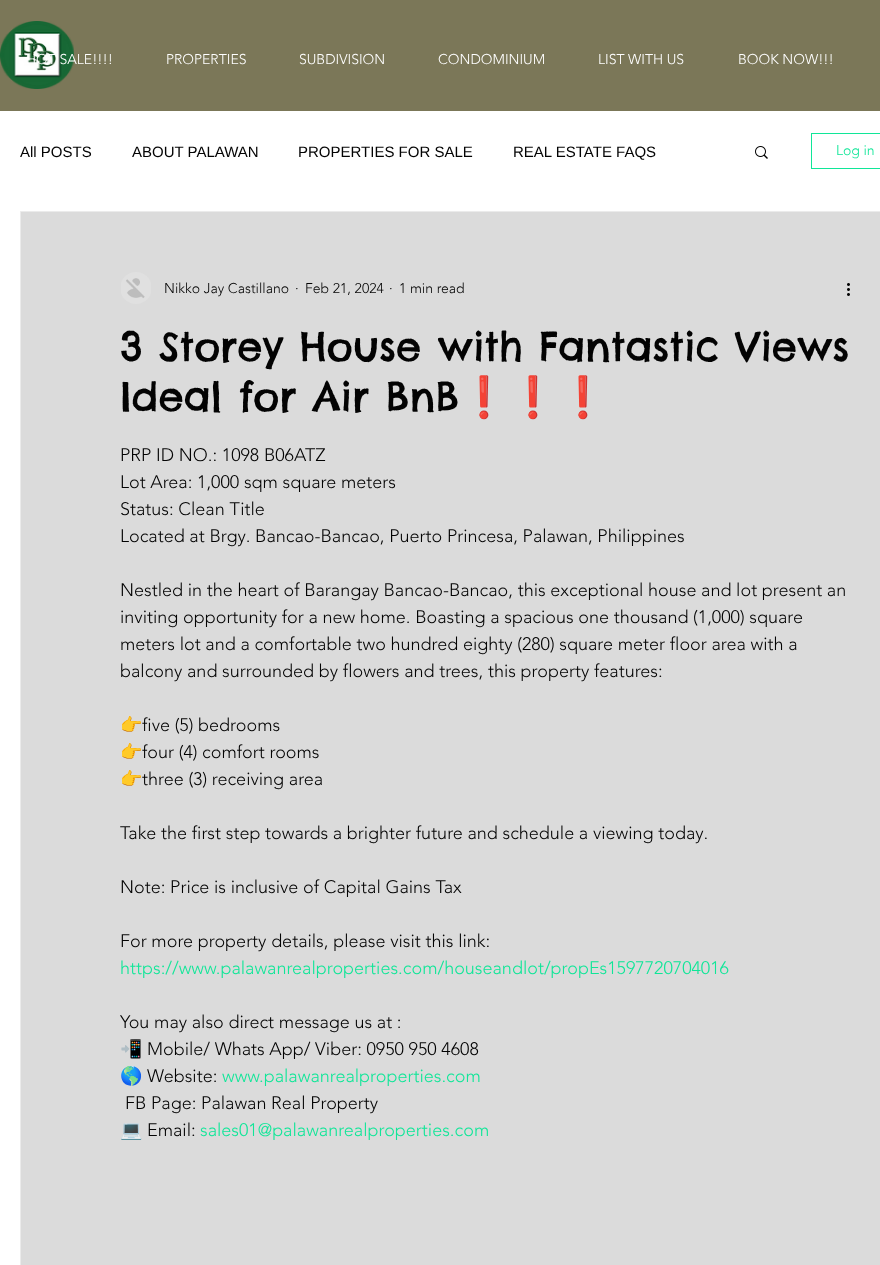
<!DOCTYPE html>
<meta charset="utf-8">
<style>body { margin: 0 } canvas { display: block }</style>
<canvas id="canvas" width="880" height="1265"></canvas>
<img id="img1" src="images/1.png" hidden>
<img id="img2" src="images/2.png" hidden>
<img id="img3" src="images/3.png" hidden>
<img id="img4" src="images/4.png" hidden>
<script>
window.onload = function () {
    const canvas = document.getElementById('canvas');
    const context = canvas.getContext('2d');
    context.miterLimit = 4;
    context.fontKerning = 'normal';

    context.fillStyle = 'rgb(255, 255, 255)';
    context.fillRect(0, 0, 880, 1265);
    context.fillStyle = 'rgb(123, 119, 88)';
    context.fillRect(0, 0, 880, 111);
    context.drawImage(document.getElementById('img1'), 0, 21, 74, 68);
    context.drawImage(document.getElementById('img2'), 755, 146, 13, 13);
    context.strokeStyle = 'rgb(16, 230, 152)';
    context.strokeRect(811.5, 133.5, 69, 35);
    context.fillStyle = 'rgb(219, 219, 219)';
    context.beginPath();
    context.rect(20.5, 211.5, 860, 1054);
    context.fill();
    context.strokeStyle = 'rgb(235, 235, 235)';
    context.stroke();
    context.drawImage(document.getElementById('img3'), 121, 272, 30, 32);
    context.drawImage(document.getElementById('img4'), 847, 283, 3, 13);
    context.font = '300 14px "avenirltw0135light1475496"';
    context.fillStyle = 'rgb(255, 255, 255)';
    context.fillText('HOT SALE!!!!', 26, 64);
    context.fillText('PROPERTIES', 166, 64);
    context.fillText('SUBDIVISION', 299, 64);
    context.fillText('CONDOMINIUM', 438, 64);
    context.fillText('LIST WITH US', 598, 64);
    context.fillText('BOOK NOW!!!', 738, 64);
    context.font = '15px Liberation Sans';
    context.fillStyle = 'rgb(3, 3, 3)';
    context.fillText('All POSTS', 20, 157);
    context.fillText('ABOUT PALAWAN', 132, 157);
    context.fillText('PROPERTIES FOR SALE', 298, 157);
    context.fillText('REAL ESTATE FAQS', 513, 157);
    context.font = '300 14px "avenirltw0135light1475496"';
    context.fillStyle = 'rgb(16, 230, 152)';
    context.fillText('Log in', 836, 155);
    context.fillStyle = 'rgb(3, 3, 3)';
    context.fillText('Nikko Jay Castillano', 164, 293);
    context.fillText('·', 295, 293);
    context.fillText('Feb 21, 2024', 305, 293);
    context.fillText('·', 389, 293);
    context.fillText('1 min read', 399, 293);
    context.font = '40px Chelsea Market';
    context.fillText('3 Storey House with Fantastic Views', 120, 361);
    context.fillText('Ideal for Air BnB', 120, 411);
    context.font = '40px Noto Color Emoji';
    context.fillText('❗❗❗', 459, 411);
    context.font = '300 18px "avenirltw0135light1475496"';
    context.fillText('PRP ID NO.: 1098 B06ATZ', 120, 461);
    context.fillText('Lot Area: 1,000 sqm square meters', 120, 488);
    context.fillText('Status: Clean Title', 120, 515);
    context.fillText('Located at Brgy. Bancao-Bancao, Puerto Princesa, Palawan, Philippines', 120, 542);
    context.fillText('Nestled in the heart of Barangay Bancao-Bancao, this exceptional house and lot present an', 120, 596);
    context.fillText('inviting opportunity for a new home. Boasting a spacious one thousand (1,000) square', 120, 623);
    context.fillText('meters lot and a comfortable two hundred eighty (280) square meter floor area with a', 120, 650);
    context.fillText('balcony and surrounded by flowers and trees, this property features:', 120, 677);
    context.font = '18px Noto Color Emoji';
    context.fillText('👉', 120, 731);
    context.font = '300 18px "avenirltw0135light1475496"';
    context.fillText('five (5) bedrooms', 142, 731);
    context.font = '18px Noto Color Emoji';
    context.fillText('👉', 120, 758);
    context.font = '300 18px "avenirltw0135light1475496"';
    context.fillText('four (4) comfort rooms', 142, 758);
    context.font = '18px Noto Color Emoji';
    context.fillText('👉', 120, 785);
    context.font = '300 18px "avenirltw0135light1475496"';
    context.fillText('three (3) receiving area', 142, 785);
    context.fillText('Take the first step towards a brighter future and schedule a viewing today.', 120, 839);
    context.fillText('Note: Price is inclusive of Capital Gains Tax', 120, 893);
    context.fillText('For more property details, please visit this link:', 120, 947);
    context.fillStyle = 'rgb(16, 230, 152)';
    context.fillText('https://www.palawanrealproperties.com/houseandlot/propEs1597720704016', 120, 974);
    context.fillStyle = 'rgb(3, 3, 3)';
    context.fillText('You may also direct message us at :', 120, 1028);
    context.font = '18px Noto Color Emoji';
    context.fillText('📲', 120, 1055);
    context.font = '300 18px "avenirltw0135light1475496"';
    context.fillText('Mobile/ Whats App/ Viber: 0950 950 4608', 147, 1055);
    context.font = '18px Noto Color Emoji';
    context.fillText('🌎', 120, 1082);
    context.font = '300 18px "avenirltw0135light1475496"';
    context.fillText('Website:', 147, 1082);
    context.fillStyle = 'rgb(16, 230, 152)';
    context.fillText('www.palawanrealproperties.com', 222, 1082);
    context.fillStyle = 'rgb(3, 3, 3)';
    context.fillText('FB Page: Palawan Real Property', 125, 1109);
    context.font = '18px Noto Color Emoji';
    context.fillText('💻', 120, 1136);
    context.font = '300 18px "avenirltw0135light1475496"';
    context.fillText('Email:', 147, 1136);
    context.fillStyle = 'rgb(16, 230, 152)';
    context.fillText('sales01@palawanrealproperties.com', 200, 1136);
};
</script>
